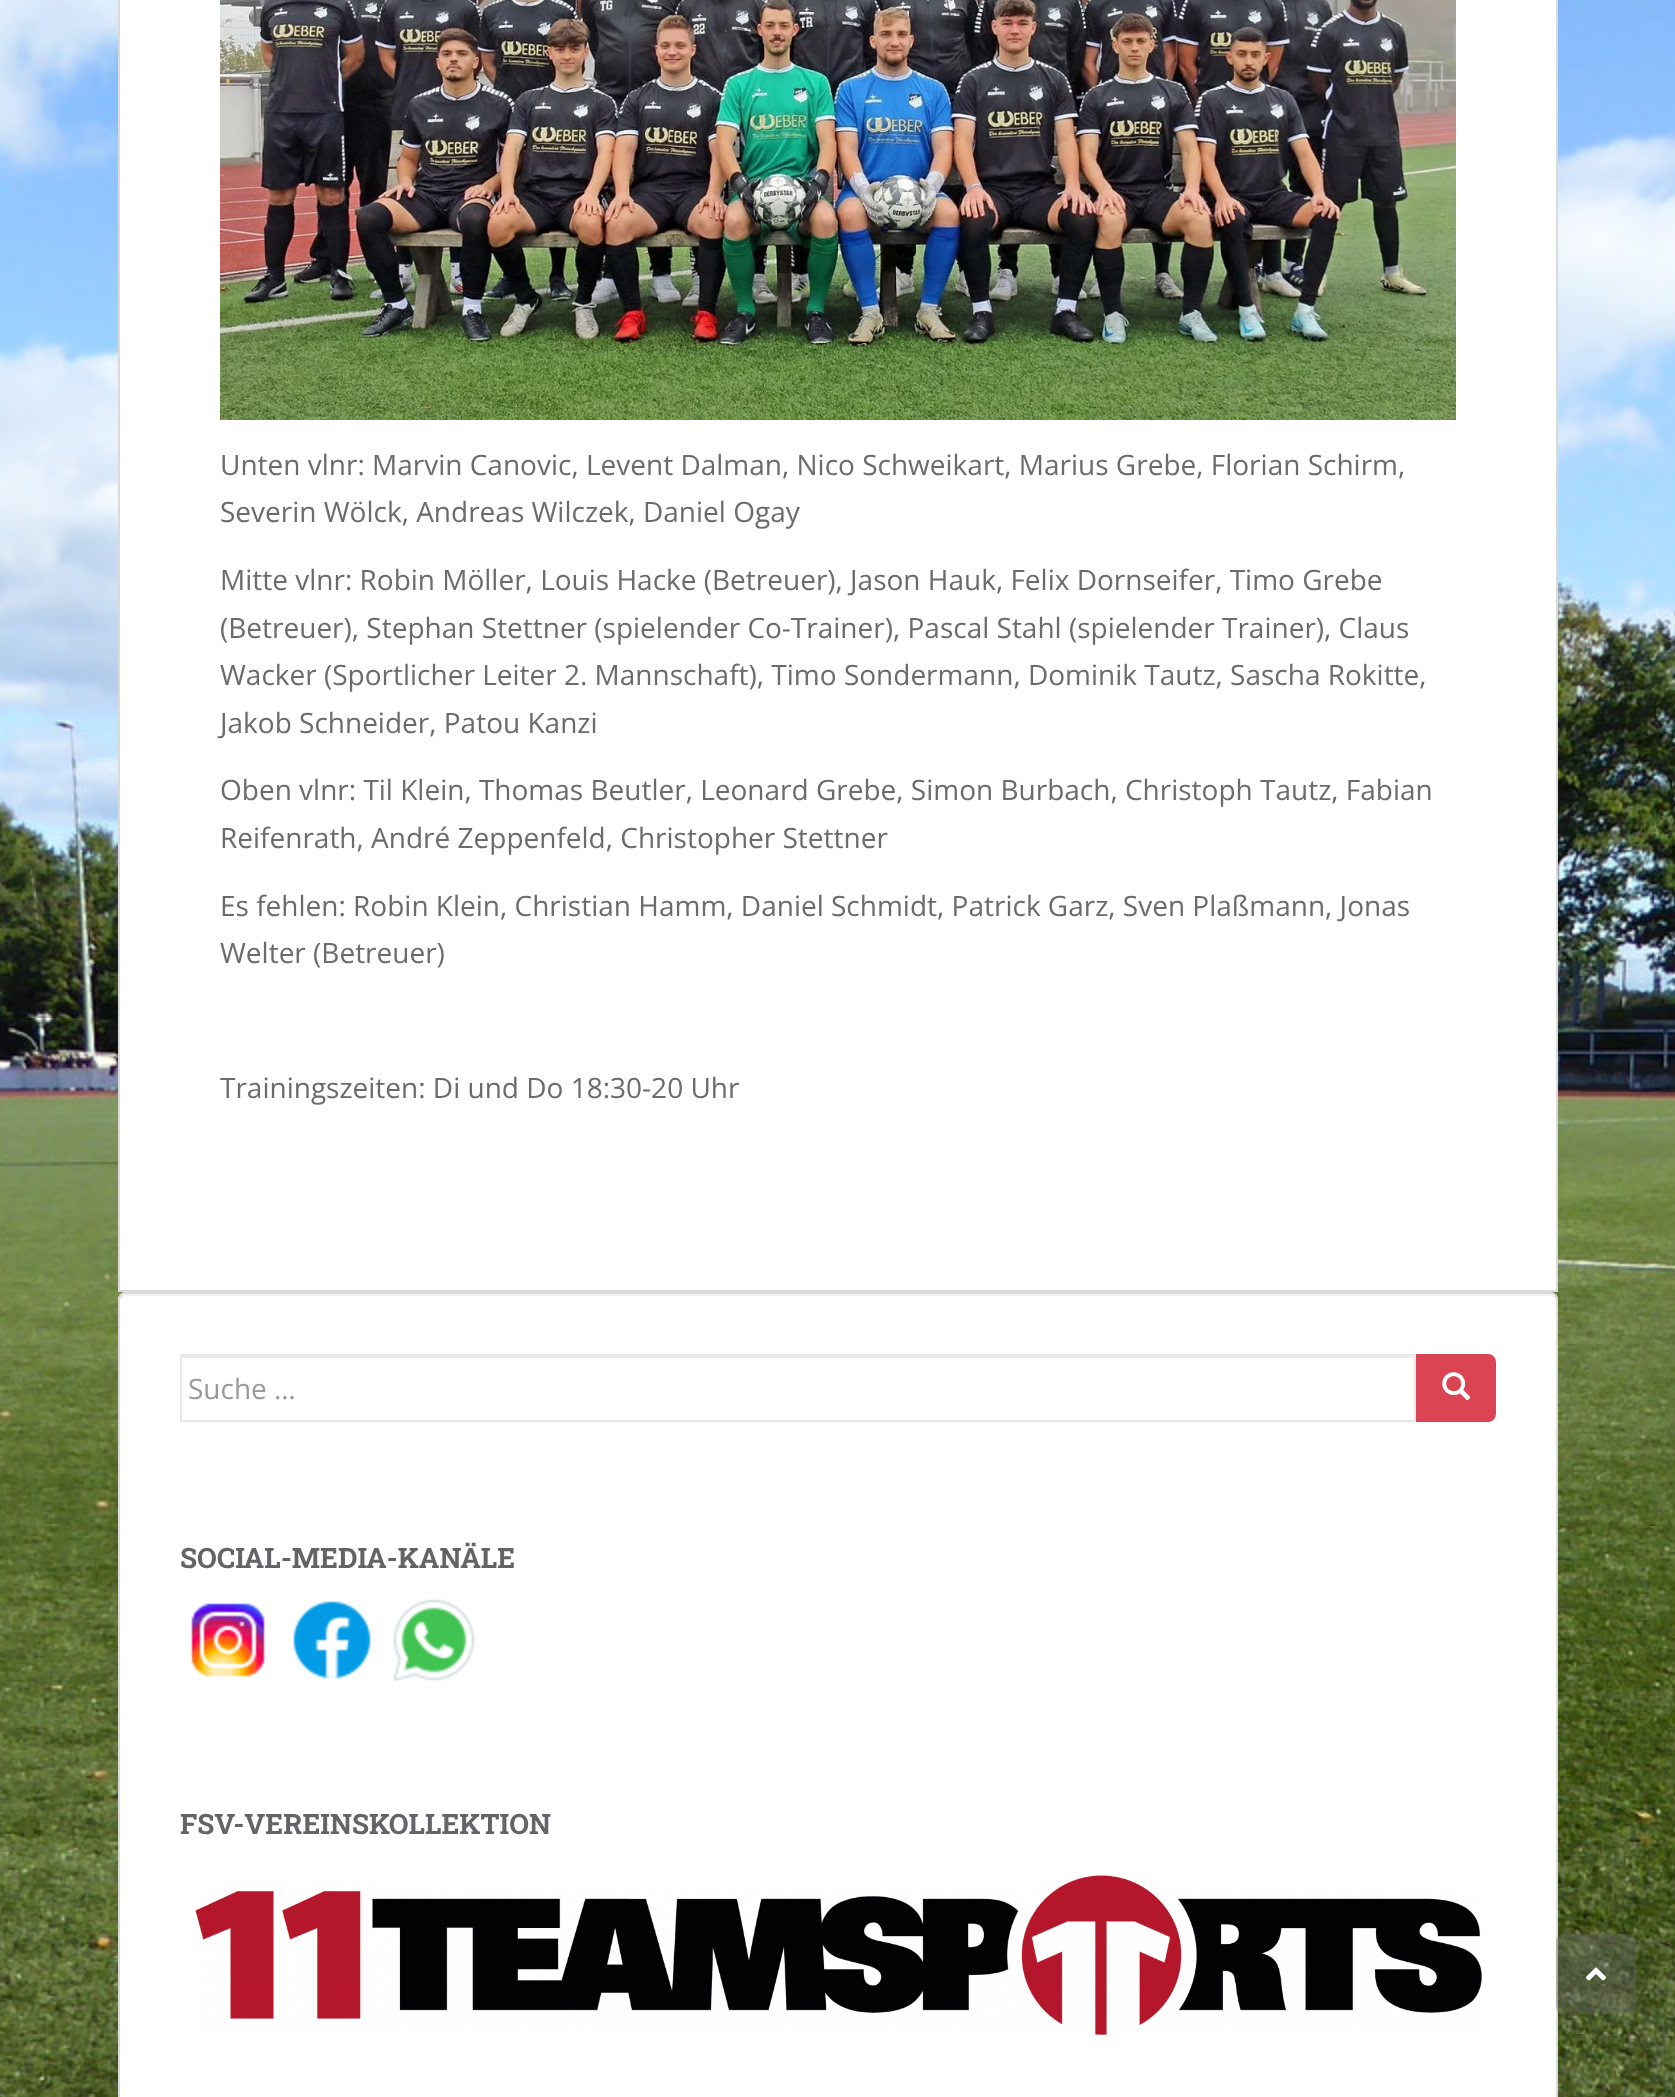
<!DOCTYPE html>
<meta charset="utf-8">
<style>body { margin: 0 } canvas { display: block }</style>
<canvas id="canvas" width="1675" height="2097"></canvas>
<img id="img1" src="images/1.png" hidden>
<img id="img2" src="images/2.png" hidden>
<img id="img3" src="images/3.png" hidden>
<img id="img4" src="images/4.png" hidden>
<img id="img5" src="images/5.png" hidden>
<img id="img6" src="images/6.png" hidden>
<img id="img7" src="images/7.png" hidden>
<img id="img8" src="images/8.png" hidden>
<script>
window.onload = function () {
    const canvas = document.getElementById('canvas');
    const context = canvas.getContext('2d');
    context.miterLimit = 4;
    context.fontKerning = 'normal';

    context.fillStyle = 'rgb(255, 255, 255)';
    context.fillRect(0, 0, 1675, 2097);
    context.drawImage(document.getElementById('img1'), 0, 0, 1675, 2097);
    context.beginPath();
    context.rect(119, -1, 1438, 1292);
    context.fill();
    context.strokeStyle = 'rgb(218, 218, 218)';
    context.lineWidth = 2;
    context.stroke();
    context.drawImage(document.getElementById('img2'), 220, 0, 1236, 420);
    context.beginPath();
    context.roundRect(118, 1292, 1440, 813, 8);
    context.fill();
    context.fillStyle = 'rgb(242, 242, 242)';
    context.beginPath();
    context.moveTo(126, 1296);
    context.lineTo(1550, 1296);
    context.bezierCurveTo(1553, 1296, 1556, 1299, 1556, 1302);
    context.bezierCurveTo(1556, 1298, 1555, 1294, 1550, 1294);
    context.lineTo(126, 1294);
    context.bezierCurveTo(121, 1294, 120, 1298, 120, 1302);
    context.bezierCurveTo(120, 1299, 123, 1296, 126, 1296);
    context.closePath();
    context.fill();
    context.beginPath();
    context.roundRect(119, 1293, 1438, 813, 7);
    context.stroke();
    context.fillStyle = 'rgb(236, 236, 236)';
    context.fillRect(182, 1356, 1232, 2);
    context.strokeStyle = 'rgb(232, 232, 232)';
    context.strokeRect(181, 1355, 1234, 66);
    context.fillStyle = 'rgb(218, 68, 83)';
    context.beginPath();
    context.roundRect(1417, 1355, 78, 66, [0, 7, 7, 0]);
    context.fill();
    context.strokeStyle = 'rgb(218, 68, 83)';
    context.stroke();
    context.drawImage(document.getElementById('img3'), 1442, 1372, 29, 29);
    context.drawImage(document.getElementById('img4'), 191, 1603, 74, 74);
    context.drawImage(document.getElementById('img5'), 293, 1601, 78, 78);
    context.drawImage(document.getElementById('img6'), 393, 1599, 82, 83);
    context.drawImage(document.getElementById('img7'), 195, 1875, 1287, 160);
    context.fillStyle = 'rgba(100, 100, 100, 0.4)';
    context.beginPath();
    context.roundRect(1556, 1934, 80, 80, 8);
    context.fill();
    context.drawImage(document.getElementById('img8'), 1586, 1967, 20, 14);
    context.font = '28px Open Sans';
    context.fillStyle = 'rgb(107, 107, 107)';
    context.fillText('Unten vlnr: Marvin Canovic, Levent Dalman, Nico Schweikart, Marius Grebe, Florian Schirm,', 220, 475);
    context.fillText('Severin Wölck, Andreas Wilczek, Daniel Ogay', 220, 522);
    context.fillText('Mitte vlnr: Robin Möller, Louis Hacke (Betreuer), Jason Hauk, Felix Dornseifer, Timo Grebe', 220, 590);
    context.fillText('(Betreuer), Stephan Stettner (spielender Co-Trainer), Pascal Stahl (spielender Trainer), Claus', 220, 638);
    context.fillText('Wacker (Sportlicher Leiter 2. Mannschaft), Timo Sondermann, Dominik Tautz, Sascha Rokitte,', 220, 685);
    context.fillText('Jakob Schneider, Patou Kanzi', 220, 733);
    context.fillText('Oben vlnr: Til Klein, Thomas Beutler, Leonard Grebe, Simon Burbach, Christoph Tautz, Fabian', 220, 800);
    context.fillText('Reifenrath, André Zeppenfeld, Christopher Stettner', 220, 848);
    context.fillText('Es fehlen: Robin Klein, Christian Hamm, Daniel Schmidt, Patrick Garz, Sven Plaßmann, Jonas', 220, 916);
    context.fillText('Welter (Betreuer)', 220, 963);
    context.fillText('Trainingszeiten: Di und Do 18:30-20 Uhr', 220, 1098);
    context.fillStyle = 'rgb(153, 153, 153)';
    context.fillText('Suche …', 188, 1399);
    context.font = 'bold 28px Roboto Slab';
    context.fillStyle = 'rgb(99, 100, 103)';
    context.fillText('SOCIAL-MEDIA-KANÄLE', 180, 1568);
    context.fillText('FSV-VEREINSKOLLEKTION', 180, 1834);
};
</script>
